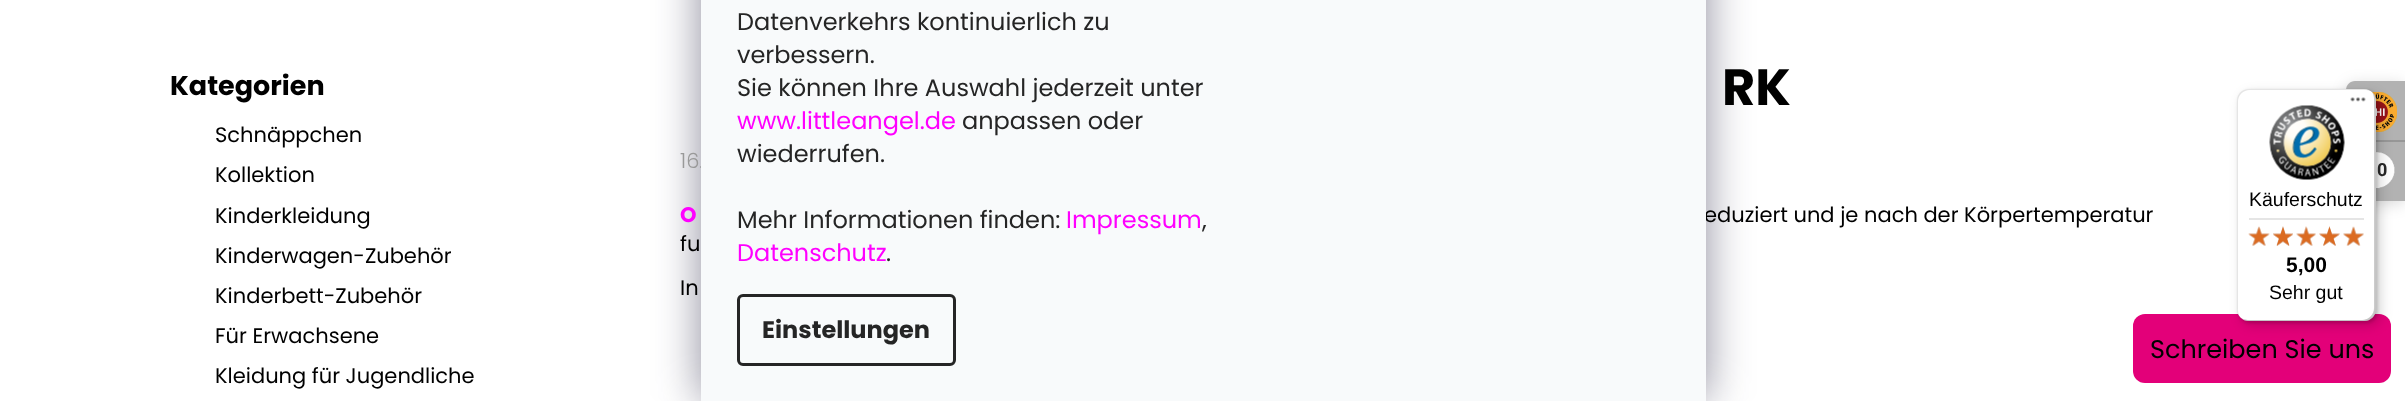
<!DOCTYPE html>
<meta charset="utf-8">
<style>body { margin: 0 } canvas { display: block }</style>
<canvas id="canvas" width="2405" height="401"></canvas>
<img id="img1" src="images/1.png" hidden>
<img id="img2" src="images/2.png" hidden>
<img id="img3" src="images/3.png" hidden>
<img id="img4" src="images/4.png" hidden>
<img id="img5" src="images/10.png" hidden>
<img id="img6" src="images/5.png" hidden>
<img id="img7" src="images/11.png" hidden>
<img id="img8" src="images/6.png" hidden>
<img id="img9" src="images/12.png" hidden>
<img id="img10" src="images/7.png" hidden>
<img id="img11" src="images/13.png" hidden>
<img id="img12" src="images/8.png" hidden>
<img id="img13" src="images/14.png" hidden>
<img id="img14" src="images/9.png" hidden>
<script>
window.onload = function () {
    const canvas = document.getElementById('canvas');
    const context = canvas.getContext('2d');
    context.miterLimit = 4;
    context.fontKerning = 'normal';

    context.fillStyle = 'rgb(255, 255, 255)';
    context.fillRect(0, 0, 2405, 401);
    context.fillStyle = 'rgba(27, 25, 57, 0.5)';
    context.filter = 'blur(22.5px)';
    context.beginPath();
    context.roundRect(701, -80, 1005, 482, 12);
    context.fill();
    context.filter = 'none';
    context.fillStyle = 'rgba(0, 0, 0, 0.15)';
    context.filter = 'blur(7.5px)';
    context.beginPath();
    context.roundRect(2346, 84, 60, 120, 9);
    context.fill();
    context.filter = 'none';
    context.fillStyle = 'rgb(178, 178, 178)';
    context.beginPath();
    context.moveTo(2355, 81);
    context.lineTo(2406, 81);
    context.lineTo(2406, 201);
    context.lineTo(2355, 201);
    context.bezierCurveTo(2350, 201, 2346, 197, 2346, 192);
    context.lineTo(2346, 90);
    context.bezierCurveTo(2346, 85, 2350, 81, 2355, 81);
    context.closePath();
    context.fill();
    context.drawImage(document.getElementById('img1'), 2371, 92, 26, 40);
    context.fillStyle = 'rgb(151, 151, 151)';
    context.fillRect(2376, 140, 29, 2);
    context.drawImage(document.getElementById('img2'), 2376, 152, 19, 37);
    context.fillStyle = 'rgb(227, 0, 121)';
    context.beginPath();
    context.roundRect(2133, 314, 258, 69, 12);
    context.fill();
    context.fillStyle = 'rgba(0, 0, 0, 0.15)';
    context.filter = 'blur(6px)';
    context.beginPath();
    context.roundRect(2241, 93, 140, 233, 12);
    context.fill();
    context.filter = 'none';
    context.filter = 'blur(1.5px)';
    context.beginPath();
    context.roundRect(2238, 90, 140, 233, 12);
    context.fill();
    context.filter = 'none';
    context.fillStyle = 'rgb(255, 255, 255)';
    context.beginPath();
    context.roundRect(2237, 89, 139, 232, 12);
    context.fill();
    context.fillStyle = 'rgba(0, 0, 0, 0.1)';
    context.beginPath();
    context.moveTo(2250, 90);
    context.lineTo(2366, 90);
    context.lineTo(2371, 91);
    context.bezierCurveTo(2369, 90, 2366, 89, 2364, 89);
    context.lineTo(2249, 89);
    context.bezierCurveTo(2242, 89, 2237, 94, 2237, 101);
    context.lineTo(2237, 309);
    context.bezierCurveTo(2237, 312, 2238, 315, 2240, 317);
    context.bezierCurveTo(2239, 315, 2238, 313, 2238, 310);
    context.lineTo(2238, 102);
    context.bezierCurveTo(2238, 95, 2243, 90, 2250, 90);
    context.closePath();
    context.fill();
    context.fillStyle = 'rgba(0, 0, 0, 0.2)';
    context.beginPath();
    context.moveTo(2243, 319);
    context.bezierCurveTo(2244, 320, 2247, 321, 2249, 321);
    context.lineTo(2364, 321);
    context.bezierCurveTo(2371, 321, 2376, 316, 2376, 309);
    context.lineTo(2376, 101);
    context.bezierCurveTo(2376, 97, 2374, 94, 2372, 92);
    context.bezierCurveTo(2373, 94, 2374, 96, 2374, 99);
    context.lineTo(2374, 308);
    context.bezierCurveTo(2374, 314, 2369, 320, 2362, 320);
    context.lineTo(2247, 320);
    context.closePath();
    context.fill();
    context.fillStyle = 'rgba(50, 50, 50, 0.2)';
    context.beginPath();
    context.moveTo(2241, 318);
    context.bezierCurveTo(2243, 320, 2246, 321, 2249, 321);
    context.lineTo(2364, 321);
    context.bezierCurveTo(2371, 321, 2376, 316, 2376, 309);
    context.lineTo(2376, 101);
    context.bezierCurveTo(2376, 98, 2375, 95, 2373, 93);
    context.bezierCurveTo(2374, 95, 2375, 97, 2375, 100);
    context.lineTo(2375, 308);
    context.bezierCurveTo(2375, 315, 2370, 320, 2363, 320);
    context.lineTo(2248, 320);
    context.bezierCurveTo(2245, 320, 2243, 319, 2241, 318);
    context.closePath();
    context.fill();
    context.fillStyle = 'rgba(255, 255, 255, 0.3)';
    context.beginPath();
    context.moveTo(2241, 318);
    context.bezierCurveTo(2243, 320, 2246, 321, 2249, 321);
    context.lineTo(2364, 321);
    context.bezierCurveTo(2371, 321, 2376, 316, 2376, 309);
    context.lineTo(2376, 101);
    context.bezierCurveTo(2376, 98, 2375, 95, 2373, 93);
    context.bezierCurveTo(2374, 95, 2375, 97, 2375, 100);
    context.lineTo(2375, 308);
    context.bezierCurveTo(2375, 315, 2370, 320, 2363, 320);
    context.lineTo(2248, 320);
    context.bezierCurveTo(2245, 320, 2243, 319, 2241, 318);
    context.closePath();
    context.fill();
    context.drawImage(document.getElementById('img3'), 2350, 97, 16, 5);
    context.drawImage(document.getElementById('img4'), 2269, 105, 76, 75);
    context.fillStyle = 'rgb(229, 229, 229)';
    context.fillRect(2249, 218, 115, 2);
    context.drawImage(document.getElementById('img5'), 2249, 227, 20, 19);
    context.drawImage(document.getElementById('img6'), 2248, 226, 22, 20);
    context.drawImage(document.getElementById('img7'), 2273, 226, 20, 20);
    context.drawImage(document.getElementById('img8'), 2273, 226, 20, 20);
    context.drawImage(document.getElementById('img9'), 2296, 226, 20, 20);
    context.drawImage(document.getElementById('img10'), 2296, 226, 20, 20);
    context.drawImage(document.getElementById('img11'), 2319, 226, 21, 20);
    context.drawImage(document.getElementById('img12'), 2319, 226, 21, 20);
    context.drawImage(document.getElementById('img13'), 2343, 227, 21, 19);
    context.drawImage(document.getElementById('img14'), 2343, 226, 21, 20);
    context.font = 'bold 27px Poppins';
    context.fillStyle = 'rgb(0, 0, 0)';
    context.fillText('Kategorien', 170, 95);
    context.font = '21px Poppins';
    context.fillText('Schnäppchen', 215, 142);
    context.fillText('Kollektion', 215, 182);
    context.fillText('Kinderkleidung', 215, 223);
    context.fillText('Kinderwagen-Zubehör', 215, 263);
    context.fillText('Kinderbett-Zubehör', 215, 303);
    context.fillText('Für Erwachsene', 215, 343);
    context.fillText('Kleidung für Jugendliche', 215, 383);
    context.font = 'bold 51px Poppins';
    context.fillText('RK', 1722, 105);
    context.font = '300 21px Poppins';
    context.fillStyle = 'rgb(153, 153, 153)';
    context.fillText('16.', 680, 168);
    context.font = 'bold 21px Poppins';
    context.fillStyle = 'rgb(255, 0, 255)';
    context.fillText('O', 680, 222);
    context.font = '21px Poppins';
    context.fillStyle = 'rgb(0, 0, 0)';
    context.fillText('eduziert und je nach der Körpertemperatur', 1704, 222);
    context.fillStyle = 'rgb(248, 250, 251)';
    context.fillRect(701, 0, 1005, 401);
    context.beginPath();
    context.roundRect(738.5, 295.5, 216, 69, 4.5);
    context.strokeStyle = 'rgb(37, 37, 37)';
    context.lineWidth = 3;
    context.stroke();
    context.font = 'bold 24px Poppins';
    context.fillStyle = 'rgb(37, 37, 37)';
    context.fillText('Einstellungen', 762, 338);
    context.font = '24px Poppins';
    context.fillText('.', 886, 261);
    context.fillStyle = 'rgb(255, 0, 255)';
    context.fillText('Datenschutz', 737, 261);
    context.fillStyle = 'rgb(37, 37, 37)';
    context.fillText(',', 1202, 228);
    context.fillStyle = 'rgb(255, 0, 255)';
    context.fillText('Impressum', 1066, 228);
    context.fillStyle = 'rgb(37, 37, 37)';
    context.fillText('Mehr Informationen finden:', 737, 228);
    context.fillText('wiederrufen.', 737, 162);
    context.fillText('anpassen oder', 962, 129);
    context.fillStyle = 'rgb(255, 0, 255)';
    context.fillText('www.littleangel.de', 737, 129);
    context.fillStyle = 'rgb(37, 37, 37)';
    context.fillText('Sie können Ihre Auswahl jederzeit unter', 737, 96);
    context.fillText('verbessern.', 737, 63);
    context.fillText('Datenverkehrs kontinuierlich zu', 737, 30);
    context.font = '21px Poppins';
    context.fillStyle = 'rgb(0, 0, 0)';
    context.fillText('fu', 680, 251);
    context.fillText('In', 680, 295);
    context.font = 'bold 18px Roboto';
    context.fillStyle = 'rgb(37, 37, 37)';
    context.fillText('0', 2377, 176);
    context.font = '19.5px Liberation Sans';
    context.fillStyle = 'rgb(0, 0, 0)';
    context.fillText('Käuferschutz', 2249, 206);
    context.font = 'bold 21px Liberation Sans';
    context.fillText('5,00', 2286, 272);
    context.font = '19.5px Liberation Sans';
    context.fillText('Sehr gut', 2269, 299);
    context.font = '25.5px Poppins';
    context.fillText('Schreiben Sie uns', 2150, 358);
};
</script>
